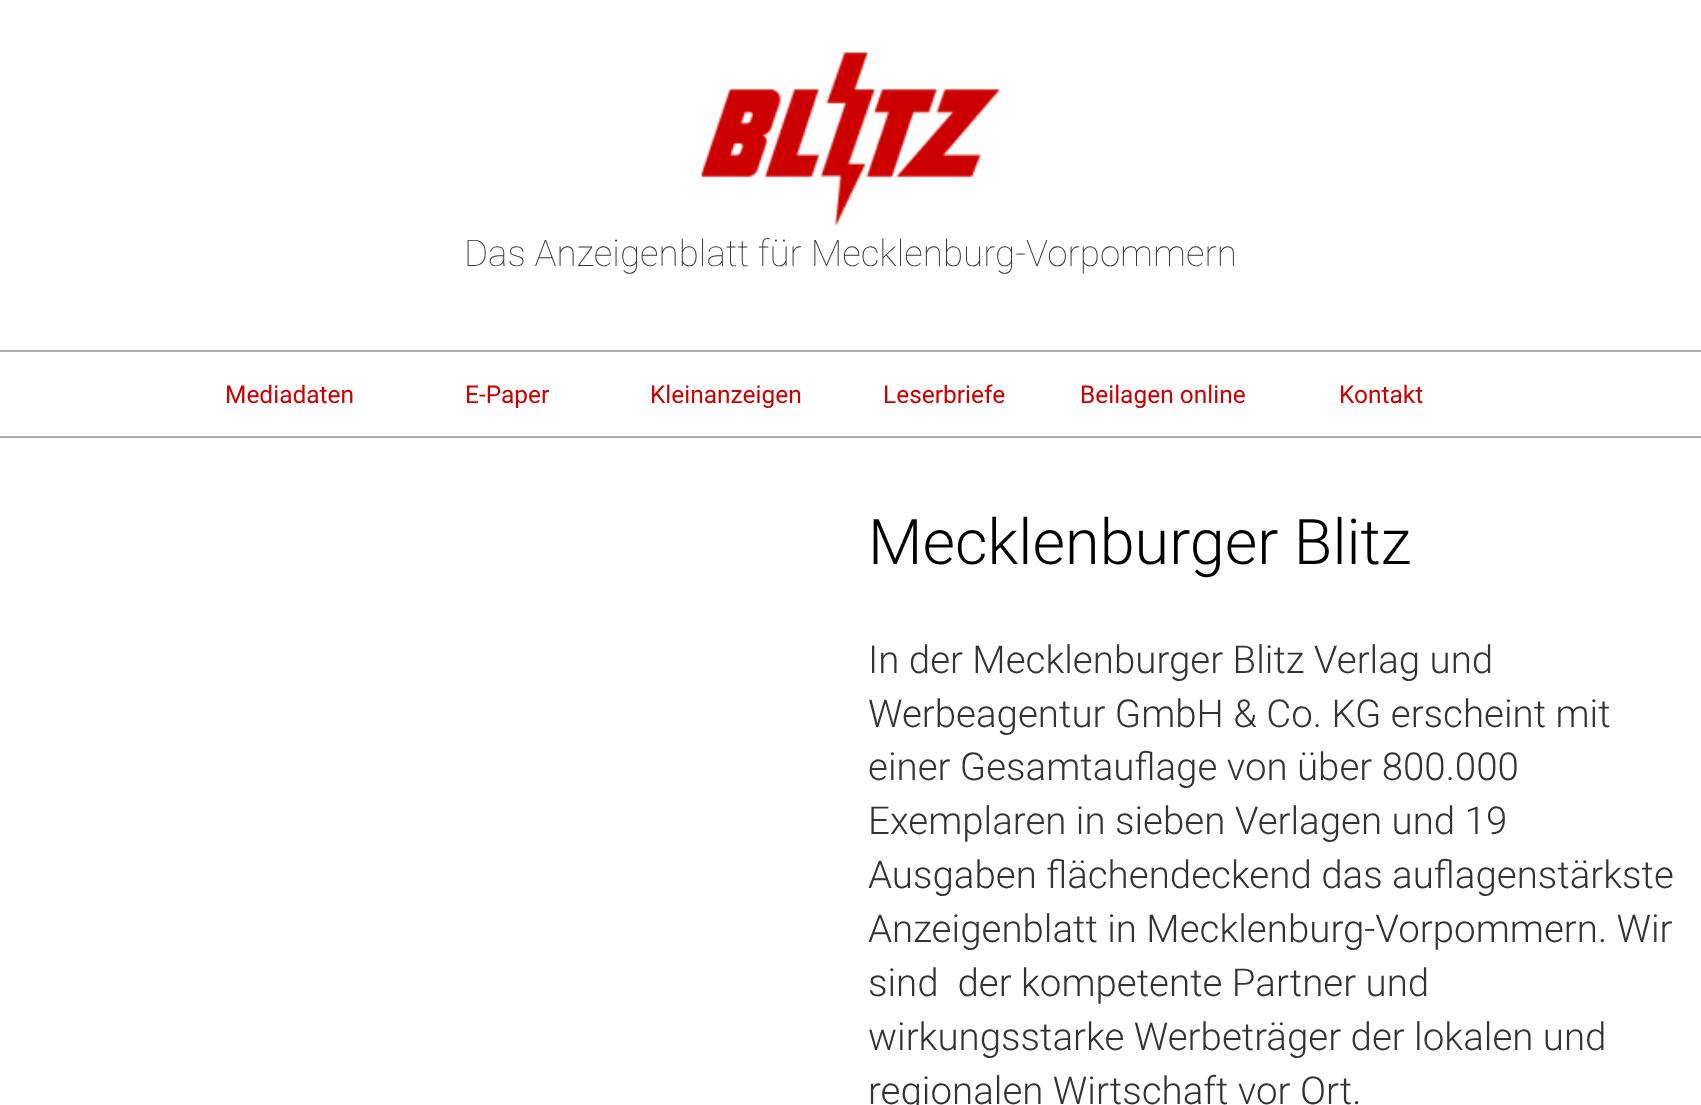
<!DOCTYPE html>
<meta charset="utf-8">
<style>body { margin: 0 } canvas { display: block }</style>
<canvas id="canvas" width="1701" height="1105"></canvas>
<img id="img1" src="images/1.png" hidden>
<script>
window.onload = function () {
    const canvas = document.getElementById('canvas');
    const context = canvas.getContext('2d');
    context.miterLimit = 4;
    context.fontKerning = 'normal';

    context.fillStyle = 'rgb(255, 255, 255)';
    context.fillRect(0, 0, 1701, 1105);
    context.drawImage(document.getElementById('img1'), 701, 52, 299, 174);
    context.fillStyle = 'rgb(170, 170, 170)';
    context.fillRect(0, 350, 1701, 2);
    context.fillRect(0, 436, 1701, 2);
    context.font = '100 36.75px Roboto';
    context.fillStyle = 'rgb(51, 51, 51)';
    context.fillText('Das Anzeigenblatt für Mecklenburg-Vorpommern', 464, 266);
    context.font = '24.5px Roboto';
    context.fillStyle = 'rgb(204, 0, 0)';
    context.fillText('Mediadaten', 225, 403);
    context.fillText('E-Paper', 465, 403);
    context.fillText('Kleinanzeigen', 650, 403);
    context.fillText('Leserbriefe', 883, 403);
    context.fillText('Beilagen online', 1080, 403);
    context.fillText('Kontakt', 1339, 403);
    context.font = '300 63px Roboto';
    context.fillStyle = 'rgb(0, 0, 0)';
    context.fillText('Mecklenburger Blitz', 868, 564);
    context.font = '300 38.5px Roboto';
    context.fillStyle = 'rgb(51, 51, 51)';
    context.fillText('In der Mecklenburger Blitz Verlag und', 868, 673);
    context.fillText('Werbeagentur GmbH & Co. KG erscheint mit', 868, 727);
    context.fillText('einer Gesamtauflage von über 800.000', 868, 780);
    context.fillText('Exemplaren in sieben Verlagen und 19', 868, 834);
    context.fillText('Ausgaben flächendeckend das auflagenstärkste', 868, 888);
    context.fillText('Anzeigenblatt in Mecklenburg-Vorpommern. Wir', 868, 942);
    context.fillText('sind  der kompetente Partner und', 868, 996);
    context.fillText('wirkungsstarke Werbeträger der lokalen und', 868, 1050);
    context.fillText('regionalen Wirtschaft vor Ort.', 868, 1104);
};
</script>
